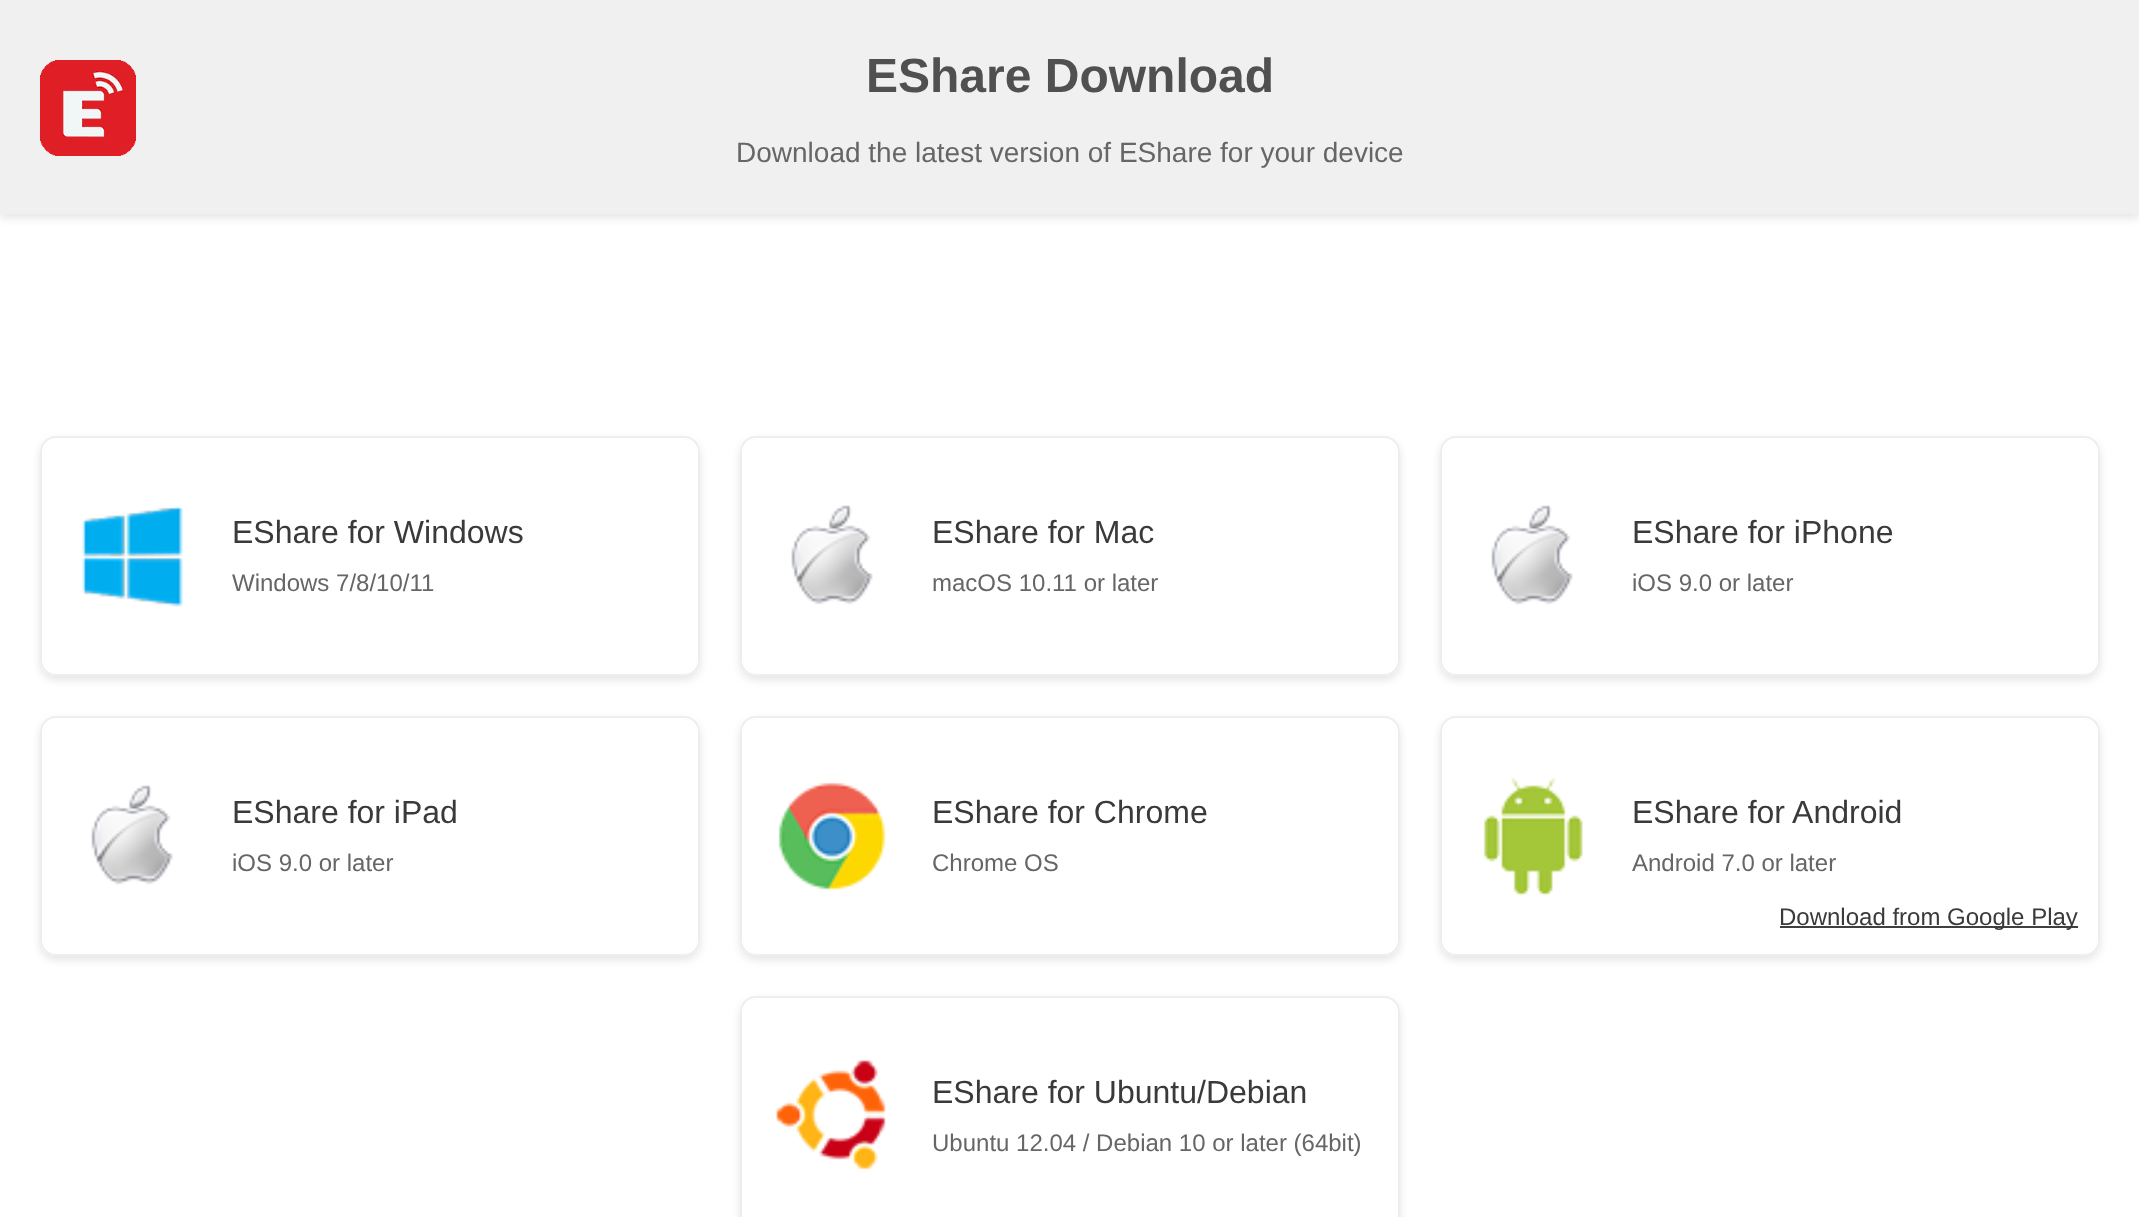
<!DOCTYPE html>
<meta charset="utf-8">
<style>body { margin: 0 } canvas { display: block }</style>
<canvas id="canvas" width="2139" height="1217"></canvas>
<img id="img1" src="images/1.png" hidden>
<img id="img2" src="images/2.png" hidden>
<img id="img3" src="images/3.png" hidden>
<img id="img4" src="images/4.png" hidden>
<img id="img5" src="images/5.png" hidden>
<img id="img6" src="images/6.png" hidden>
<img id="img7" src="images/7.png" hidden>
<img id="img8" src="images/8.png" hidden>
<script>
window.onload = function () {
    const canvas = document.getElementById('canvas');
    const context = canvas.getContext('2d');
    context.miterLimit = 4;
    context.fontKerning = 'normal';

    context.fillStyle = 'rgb(255, 255, 255)';
    context.fillRect(0, 0, 2139, 1217);
    context.fillStyle = 'rgba(0, 0, 0, 0.1)';
    context.filter = 'blur(4px)';
    context.beginPath();
    context.rect(0, 4, 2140, 214);
    context.fill();
    context.filter = 'none';
    context.fillStyle = 'rgb(240, 240, 240)';
    context.fillRect(0, 0, 2139, 214);
    context.drawImage(document.getElementById('img1'), 40, 60, 96, 96);
    context.save();
    context.beginPath();
    context.moveTo(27, 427);
    context.lineTo(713, 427);
    context.lineTo(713, 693);
    context.lineTo(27, 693);
    context.closePath();
    context.moveTo(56, 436);
    context.lineTo(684, 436);
    context.bezierCurveTo(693, 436, 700, 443, 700, 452);
    context.lineTo(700, 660);
    context.bezierCurveTo(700, 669, 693, 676, 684, 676);
    context.lineTo(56, 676);
    context.bezierCurveTo(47, 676, 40, 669, 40, 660);
    context.lineTo(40, 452);
    context.bezierCurveTo(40, 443, 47, 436, 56, 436);
    context.closePath();
    context.clip('evenodd');
    context.fillStyle = 'rgba(0, 0, 0, 0.1)';
    context.filter = 'blur(4px)';
    context.beginPath();
    context.roundRect(40, 440, 660, 240, 16);
    context.fill();
    context.filter = 'none';
    context.restore();
    context.beginPath();
    context.roundRect(41, 437, 658, 238, 15);
    context.strokeStyle = 'rgb(238, 238, 238)';
    context.lineWidth = 2;
    context.stroke();
    context.drawImage(document.getElementById('img2'), 81, 505, 102, 102);
    context.save();
    context.beginPath();
    context.moveTo(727, 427);
    context.lineTo(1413, 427);
    context.lineTo(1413, 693);
    context.lineTo(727, 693);
    context.closePath();
    context.moveTo(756, 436);
    context.lineTo(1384, 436);
    context.bezierCurveTo(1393, 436, 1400, 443, 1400, 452);
    context.lineTo(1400, 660);
    context.bezierCurveTo(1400, 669, 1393, 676, 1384, 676);
    context.lineTo(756, 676);
    context.bezierCurveTo(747, 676, 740, 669, 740, 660);
    context.lineTo(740, 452);
    context.bezierCurveTo(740, 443, 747, 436, 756, 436);
    context.closePath();
    context.clip('evenodd');
    context.fillStyle = 'rgba(0, 0, 0, 0.1)';
    context.filter = 'blur(4px)';
    context.beginPath();
    context.roundRect(740, 440, 660, 240, 16);
    context.fill();
    context.filter = 'none';
    context.restore();
    context.beginPath();
    context.roundRect(741, 437, 658, 238, 15);
    context.stroke();
    context.drawImage(document.getElementById('img3'), 791, 505, 82, 100);
    context.save();
    context.beginPath();
    context.moveTo(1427, 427);
    context.lineTo(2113, 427);
    context.lineTo(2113, 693);
    context.lineTo(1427, 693);
    context.closePath();
    context.moveTo(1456, 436);
    context.lineTo(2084, 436);
    context.bezierCurveTo(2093, 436, 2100, 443, 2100, 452);
    context.lineTo(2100, 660);
    context.bezierCurveTo(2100, 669, 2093, 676, 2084, 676);
    context.lineTo(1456, 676);
    context.bezierCurveTo(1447, 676, 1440, 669, 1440, 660);
    context.lineTo(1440, 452);
    context.bezierCurveTo(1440, 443, 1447, 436, 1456, 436);
    context.closePath();
    context.clip('evenodd');
    context.fillStyle = 'rgba(0, 0, 0, 0.1)';
    context.filter = 'blur(4px)';
    context.beginPath();
    context.roundRect(1440, 440, 660, 240, 16);
    context.fill();
    context.filter = 'none';
    context.restore();
    context.beginPath();
    context.roundRect(1441, 437, 658, 238, 15);
    context.stroke();
    context.drawImage(document.getElementById('img4'), 1491, 505, 82, 100);
    context.save();
    context.beginPath();
    context.moveTo(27, 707);
    context.lineTo(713, 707);
    context.lineTo(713, 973);
    context.lineTo(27, 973);
    context.closePath();
    context.moveTo(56, 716);
    context.lineTo(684, 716);
    context.bezierCurveTo(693, 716, 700, 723, 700, 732);
    context.lineTo(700, 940);
    context.bezierCurveTo(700, 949, 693, 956, 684, 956);
    context.lineTo(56, 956);
    context.bezierCurveTo(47, 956, 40, 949, 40, 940);
    context.lineTo(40, 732);
    context.bezierCurveTo(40, 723, 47, 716, 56, 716);
    context.closePath();
    context.clip('evenodd');
    context.fillStyle = 'rgba(0, 0, 0, 0.1)';
    context.filter = 'blur(4px)';
    context.beginPath();
    context.roundRect(40, 720, 660, 240, 16);
    context.fill();
    context.filter = 'none';
    context.restore();
    context.beginPath();
    context.roundRect(41, 717, 658, 238, 15);
    context.stroke();
    context.drawImage(document.getElementById('img5'), 91, 785, 82, 100);
    context.save();
    context.beginPath();
    context.moveTo(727, 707);
    context.lineTo(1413, 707);
    context.lineTo(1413, 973);
    context.lineTo(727, 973);
    context.closePath();
    context.moveTo(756, 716);
    context.lineTo(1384, 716);
    context.bezierCurveTo(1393, 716, 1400, 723, 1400, 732);
    context.lineTo(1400, 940);
    context.bezierCurveTo(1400, 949, 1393, 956, 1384, 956);
    context.lineTo(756, 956);
    context.bezierCurveTo(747, 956, 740, 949, 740, 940);
    context.lineTo(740, 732);
    context.bezierCurveTo(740, 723, 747, 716, 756, 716);
    context.closePath();
    context.clip('evenodd');
    context.fillStyle = 'rgba(0, 0, 0, 0.1)';
    context.filter = 'blur(4px)';
    context.beginPath();
    context.roundRect(740, 720, 660, 240, 16);
    context.fill();
    context.filter = 'none';
    context.restore();
    context.beginPath();
    context.roundRect(741, 717, 658, 238, 15);
    context.stroke();
    context.drawImage(document.getElementById('img6'), 778, 782, 108, 109);
    context.save();
    context.beginPath();
    context.moveTo(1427, 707);
    context.lineTo(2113, 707);
    context.lineTo(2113, 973);
    context.lineTo(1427, 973);
    context.closePath();
    context.moveTo(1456, 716);
    context.lineTo(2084, 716);
    context.bezierCurveTo(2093, 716, 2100, 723, 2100, 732);
    context.lineTo(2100, 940);
    context.bezierCurveTo(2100, 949, 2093, 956, 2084, 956);
    context.lineTo(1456, 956);
    context.bezierCurveTo(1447, 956, 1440, 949, 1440, 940);
    context.lineTo(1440, 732);
    context.bezierCurveTo(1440, 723, 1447, 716, 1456, 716);
    context.closePath();
    context.clip('evenodd');
    context.fillStyle = 'rgba(0, 0, 0, 0.1)';
    context.filter = 'blur(4px)';
    context.beginPath();
    context.roundRect(1440, 720, 660, 240, 16);
    context.fill();
    context.filter = 'none';
    context.restore();
    context.beginPath();
    context.roundRect(1441, 717, 658, 238, 15);
    context.stroke();
    context.drawImage(document.getElementById('img7'), 1483, 778, 100, 118);
    context.fillStyle = 'rgb(63, 63, 63)';
    context.fillRect(1780, 926, 298, 2);
    context.save();
    context.beginPath();
    context.moveTo(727, 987);
    context.lineTo(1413, 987);
    context.lineTo(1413, 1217);
    context.lineTo(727, 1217);
    context.closePath();
    context.moveTo(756, 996);
    context.lineTo(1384, 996);
    context.bezierCurveTo(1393, 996, 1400, 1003, 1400, 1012);
    context.lineTo(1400, 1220);
    context.bezierCurveTo(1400, 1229, 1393, 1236, 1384, 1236);
    context.lineTo(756, 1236);
    context.bezierCurveTo(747, 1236, 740, 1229, 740, 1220);
    context.lineTo(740, 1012);
    context.bezierCurveTo(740, 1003, 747, 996, 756, 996);
    context.closePath();
    context.clip('evenodd');
    context.fillStyle = 'rgba(0, 0, 0, 0.1)';
    context.filter = 'blur(4px)';
    context.beginPath();
    context.roundRect(740, 1000, 660, 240, 16);
    context.fill();
    context.filter = 'none';
    context.restore();
    context.beginPath();
    context.roundRect(741, 997, 658, 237, 15);
    context.stroke();
    context.drawImage(document.getElementById('img8'), 776, 1060, 110, 110);
    context.font = 'bold 48px Liberation Sans';
    context.fillStyle = 'rgb(80, 80, 80)';
    context.fillText('EShare Download', 866, 92);
    context.font = '28px Liberation Sans';
    context.fillStyle = 'rgb(102, 102, 102)';
    context.fillText('Download the latest version of EShare for your device', 736, 162);
    context.font = '32px Liberation Sans';
    context.fillStyle = 'rgb(58, 58, 58)';
    context.fillText('EShare for Windows', 232, 543);
    context.font = '24px Liberation Sans';
    context.fillStyle = 'rgb(102, 102, 102)';
    context.fillText('Windows 7/8/10/11', 232, 591);
    context.font = '32px Liberation Sans';
    context.fillStyle = 'rgb(58, 58, 58)';
    context.fillText('EShare for Mac', 932, 543);
    context.font = '24px Liberation Sans';
    context.fillStyle = 'rgb(102, 102, 102)';
    context.fillText('macOS 10.11 or later', 932, 591);
    context.font = '32px Liberation Sans';
    context.fillStyle = 'rgb(58, 58, 58)';
    context.fillText('EShare for iPhone', 1632, 543);
    context.font = '24px Liberation Sans';
    context.fillStyle = 'rgb(102, 102, 102)';
    context.fillText('iOS 9.0 or later', 1632, 591);
    context.font = '32px Liberation Sans';
    context.fillStyle = 'rgb(58, 58, 58)';
    context.fillText('EShare for iPad', 232, 823);
    context.font = '24px Liberation Sans';
    context.fillStyle = 'rgb(102, 102, 102)';
    context.fillText('iOS 9.0 or later', 232, 871);
    context.font = '32px Liberation Sans';
    context.fillStyle = 'rgb(58, 58, 58)';
    context.fillText('EShare for Chrome', 932, 823);
    context.font = '24px Liberation Sans';
    context.fillStyle = 'rgb(102, 102, 102)';
    context.fillText('Chrome OS', 932, 871);
    context.font = '32px Liberation Sans';
    context.fillStyle = 'rgb(58, 58, 58)';
    context.fillText('EShare for Android', 1632, 823);
    context.font = '24px Liberation Sans';
    context.fillStyle = 'rgb(102, 102, 102)';
    context.fillText('Android 7.0 or later', 1632, 871);
    context.fillStyle = 'rgb(58, 58, 58)';
    context.fillText('Download from Google Play', 1779, 925);
    context.font = '32px Liberation Sans';
    context.fillText('EShare for Ubuntu/Debian', 932, 1103);
    context.font = '24px Liberation Sans';
    context.fillStyle = 'rgb(102, 102, 102)';
    context.fillText('Ubuntu 12.04 / Debian 10 or later (64bit)', 932, 1151);
};
</script>
